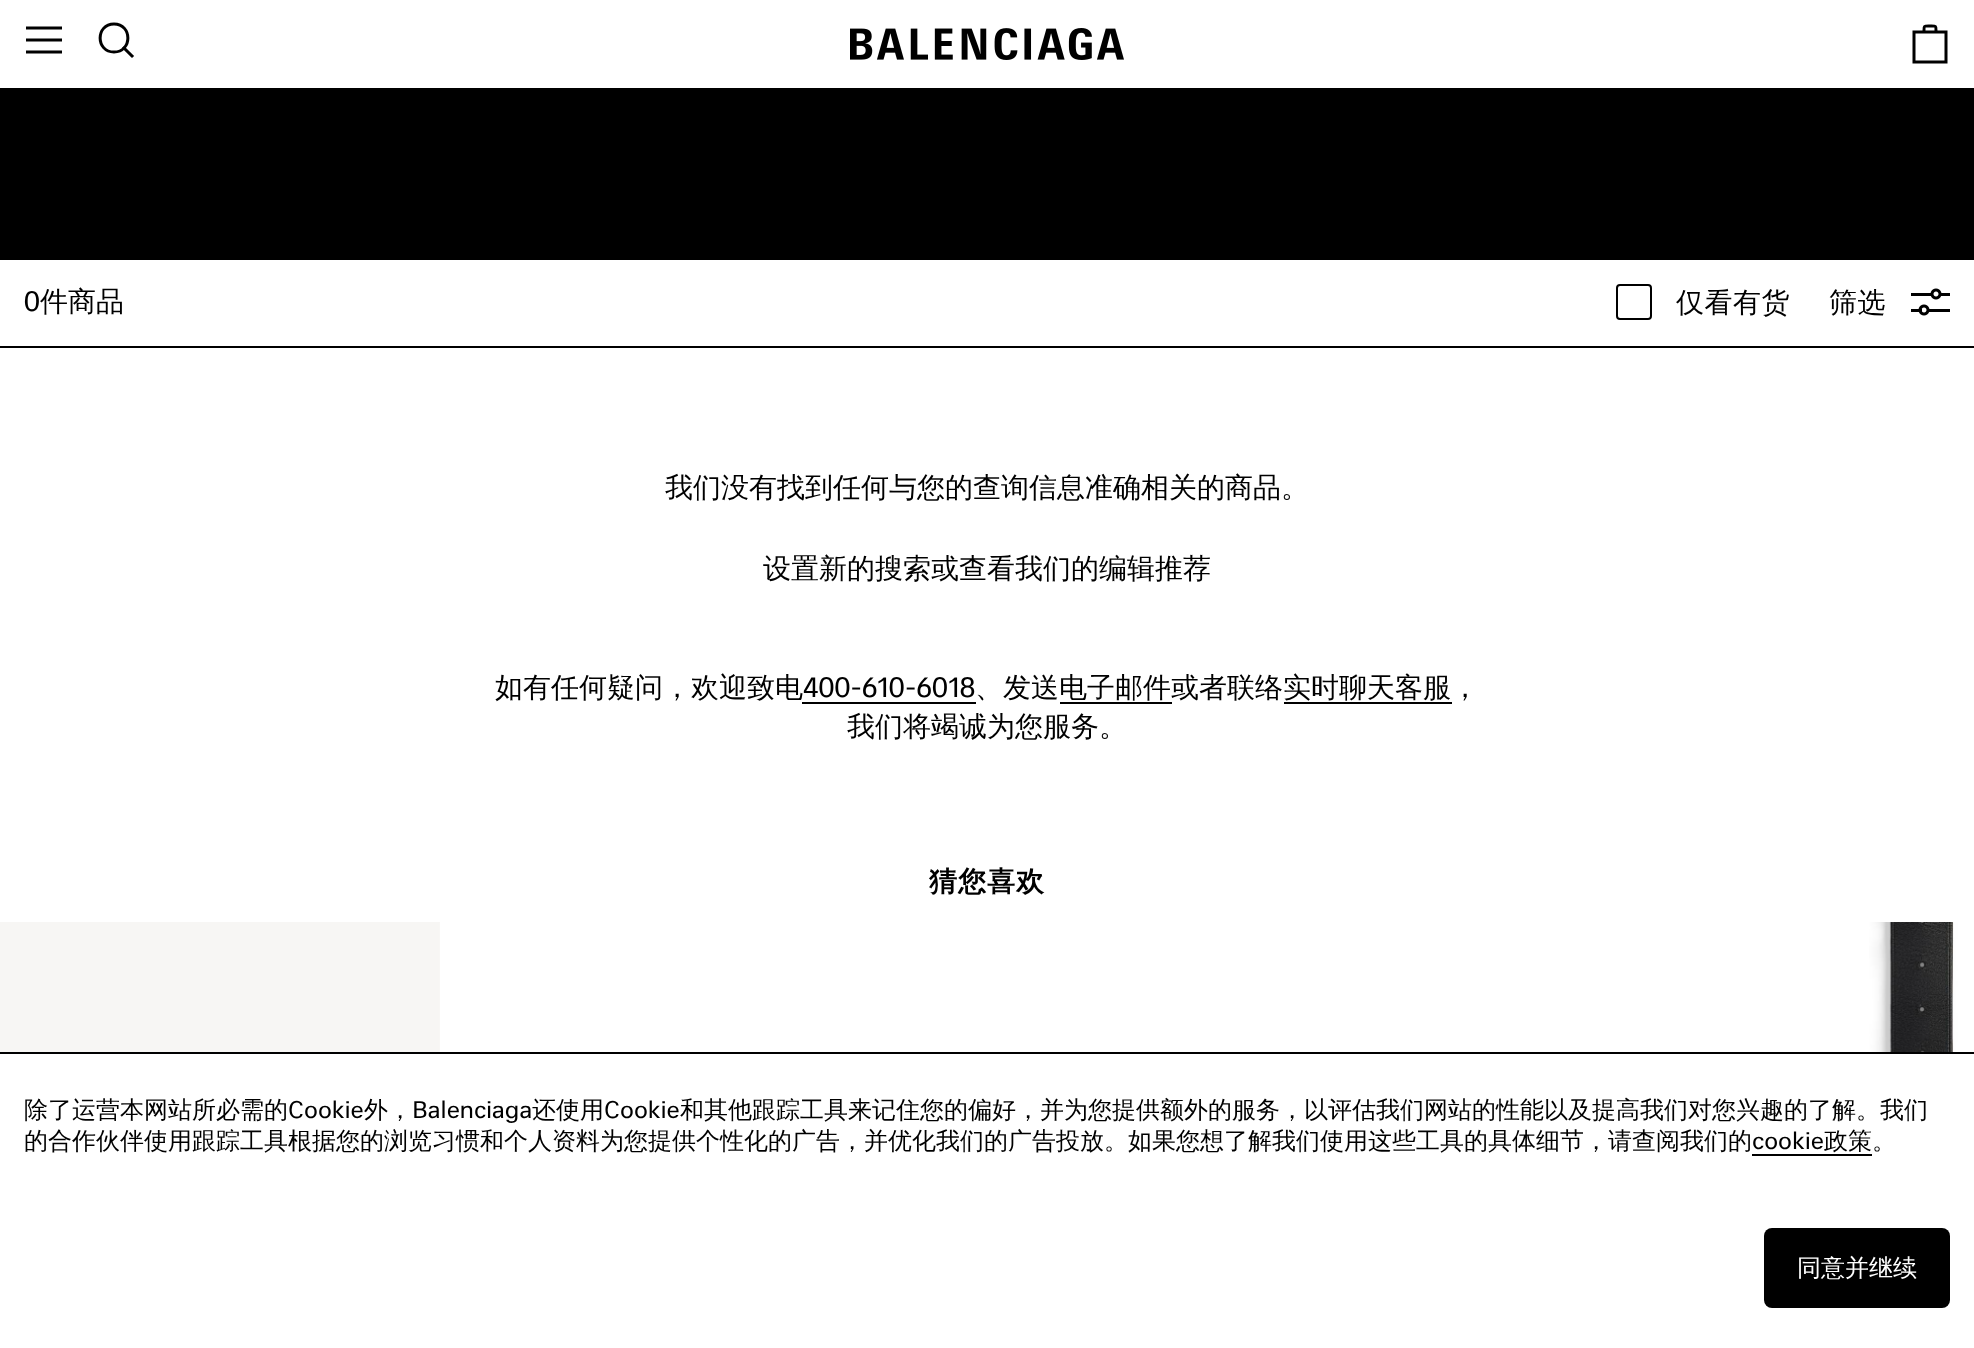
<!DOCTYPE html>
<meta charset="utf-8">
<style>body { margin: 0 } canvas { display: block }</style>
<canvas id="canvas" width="1974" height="1348"></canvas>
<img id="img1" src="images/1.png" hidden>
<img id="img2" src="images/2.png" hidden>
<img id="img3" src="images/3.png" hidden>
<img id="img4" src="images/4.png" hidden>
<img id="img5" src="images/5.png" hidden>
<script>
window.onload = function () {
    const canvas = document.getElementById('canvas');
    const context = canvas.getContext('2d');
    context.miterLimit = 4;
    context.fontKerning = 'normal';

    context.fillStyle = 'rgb(255, 255, 255)';
    context.fillRect(0, 0, 1974, 1348);
    context.fillStyle = 'rgb(0, 0, 0)';
    context.fillRect(0, 88, 1974, 2);
    context.beginPath();
    context.moveTo(26, 28);
    context.lineTo(62, 28);
    context.moveTo(26, 40);
    context.lineTo(62, 40);
    context.moveTo(26, 52);
    context.lineTo(62, 52);
    context.strokeStyle = 'rgb(0, 0, 0)';
    context.lineWidth = 3;
    context.stroke();
    context.beginPath();
    context.moveTo(114, 52);
    context.bezierCurveTo(132.5, 52, 132.5, 24, 114, 24);
    context.bezierCurveTo(95.5, 24, 95.5, 52, 114, 52);
    context.closePath();
    context.lineCap = 'round';
    context.lineJoin = 'round';
    context.stroke();
    context.beginPath();
    context.moveTo(132, 56);
    context.lineTo(124, 48);
    context.lineCap = 'square';
    context.stroke();
    context.drawImage(document.getElementById('img1'), 850, 28, 274, 32);
    context.beginPath();
    context.moveTo(1946, 62);
    context.lineTo(1914, 62);
    context.lineTo(1914, 32);
    context.lineTo(1946, 32);
    context.closePath();
    context.lineJoin = 'miter';
    context.stroke();
    context.beginPath();
    context.moveTo(1936, 32);
    context.bezierCurveTo(1936, 25.5, 1936.5, 26, 1930, 26);
    context.bezierCurveTo(1923.5, 26, 1924, 25.5, 1924, 32);
    context.lineCap = 'butt';
    context.stroke();
    context.fillRect(0, 258, 1974, 2);
    context.drawImage(document.getElementById('img2'), 0, 90, 1974, 168);
    context.fillRect(0, 346, 1974, 2);
    context.beginPath();
    context.roundRect(1617, 285, 34, 34, 3);
    context.lineWidth = 2;
    context.stroke();
    context.drawImage(document.getElementById('img3'), 1911, 288, 39, 28);
    context.fillRect(802, 702, 174, 2);
    context.fillRect(1060, 702, 112, 2);
    context.fillRect(1284, 702, 168, 2);
    context.drawImage(document.getElementById('img4'), 0, 922, 440, 130);
    context.drawImage(document.getElementById('img5'), 1869, 922, 105, 130);
    context.fillRect(0, 1052, 1974, 2);
    context.fillRect(1752, 1154, 120, 2);
    context.beginPath();
    context.roundRect(1764, 1228, 186, 80, 8);
    context.fill();
    context.font = '28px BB';
    context.fillText('0', 24, 311);
    context.font = '500 28px WenQuanYi Zen Hei';
    context.fillText('件商品', 40, 311);
    context.letterSpacing = '0.5px';
    context.fillText('仅看有货', 1676, 312);
    context.fillText('筛选', 1829, 312);
    context.letterSpacing = '0px';
    context.fillText('我们没有找到任何与您的查询信息准确相关的商品。', 665, 497);
    context.fillText('设置新的搜索或查看我们的编辑推荐', 763, 578);
    context.fillText('如有任何疑问，欢迎致电', 495, 697);
    context.font = '28px BB';
    context.fillText('400-610-6018', 803, 697);
    context.font = '500 28px WenQuanYi Zen Hei';
    context.fillText('、发送电子邮件', 975, 697);
    context.fillText('或者联络实时聊天客服', 1171, 697);
    context.fillText('，', 1451, 697);
    context.fillText('我们将竭诚为您服务。', 847, 736);
    context.letterSpacing = '1px';
    context.font = 'bold 28px WenQuanYi Zen Hei';
    context.fillText('猜您喜欢', 929, 891);
    context.letterSpacing = '0px';
    context.font = '500 24px WenQuanYi Zen Hei';
    context.fillText('除了运营本网站所必需的', 24, 1118);
    context.font = '24px BB';
    context.fillText('Cookie', 288, 1118);
    context.font = '500 24px WenQuanYi Zen Hei';
    context.fillText('外，', 364, 1118);
    context.font = '24px BB';
    context.fillText('Balenciaga', 412, 1118);
    context.font = '500 24px WenQuanYi Zen Hei';
    context.fillText('还使用', 532, 1118);
    context.font = '24px BB';
    context.fillText('Cookie', 604, 1118);
    context.font = '500 24px WenQuanYi Zen Hei';
    context.fillText('和其他跟踪工具来记住您的偏好，并为您提供额外的服务，以评估我们网站的性能以及提高我们对您兴趣的了解。我们', 680, 1118);
    context.fillText('的合作伙伴使用跟踪工具根据您的浏览习惯和个人资料为您提供个性化的广告，并优化我们的广告投放。如果您想了解我们使用这些工具的具体细节，请查阅我们的', 24, 1149);
    context.font = '24px BB';
    context.fillText('cookie', 1752, 1149);
    context.font = '500 24px WenQuanYi Zen Hei';
    context.fillText('政策。', 1824, 1149);
    context.fillStyle = 'rgb(255, 255, 255)';
    context.fillText('同意并继续', 1797, 1276);
};
</script>
